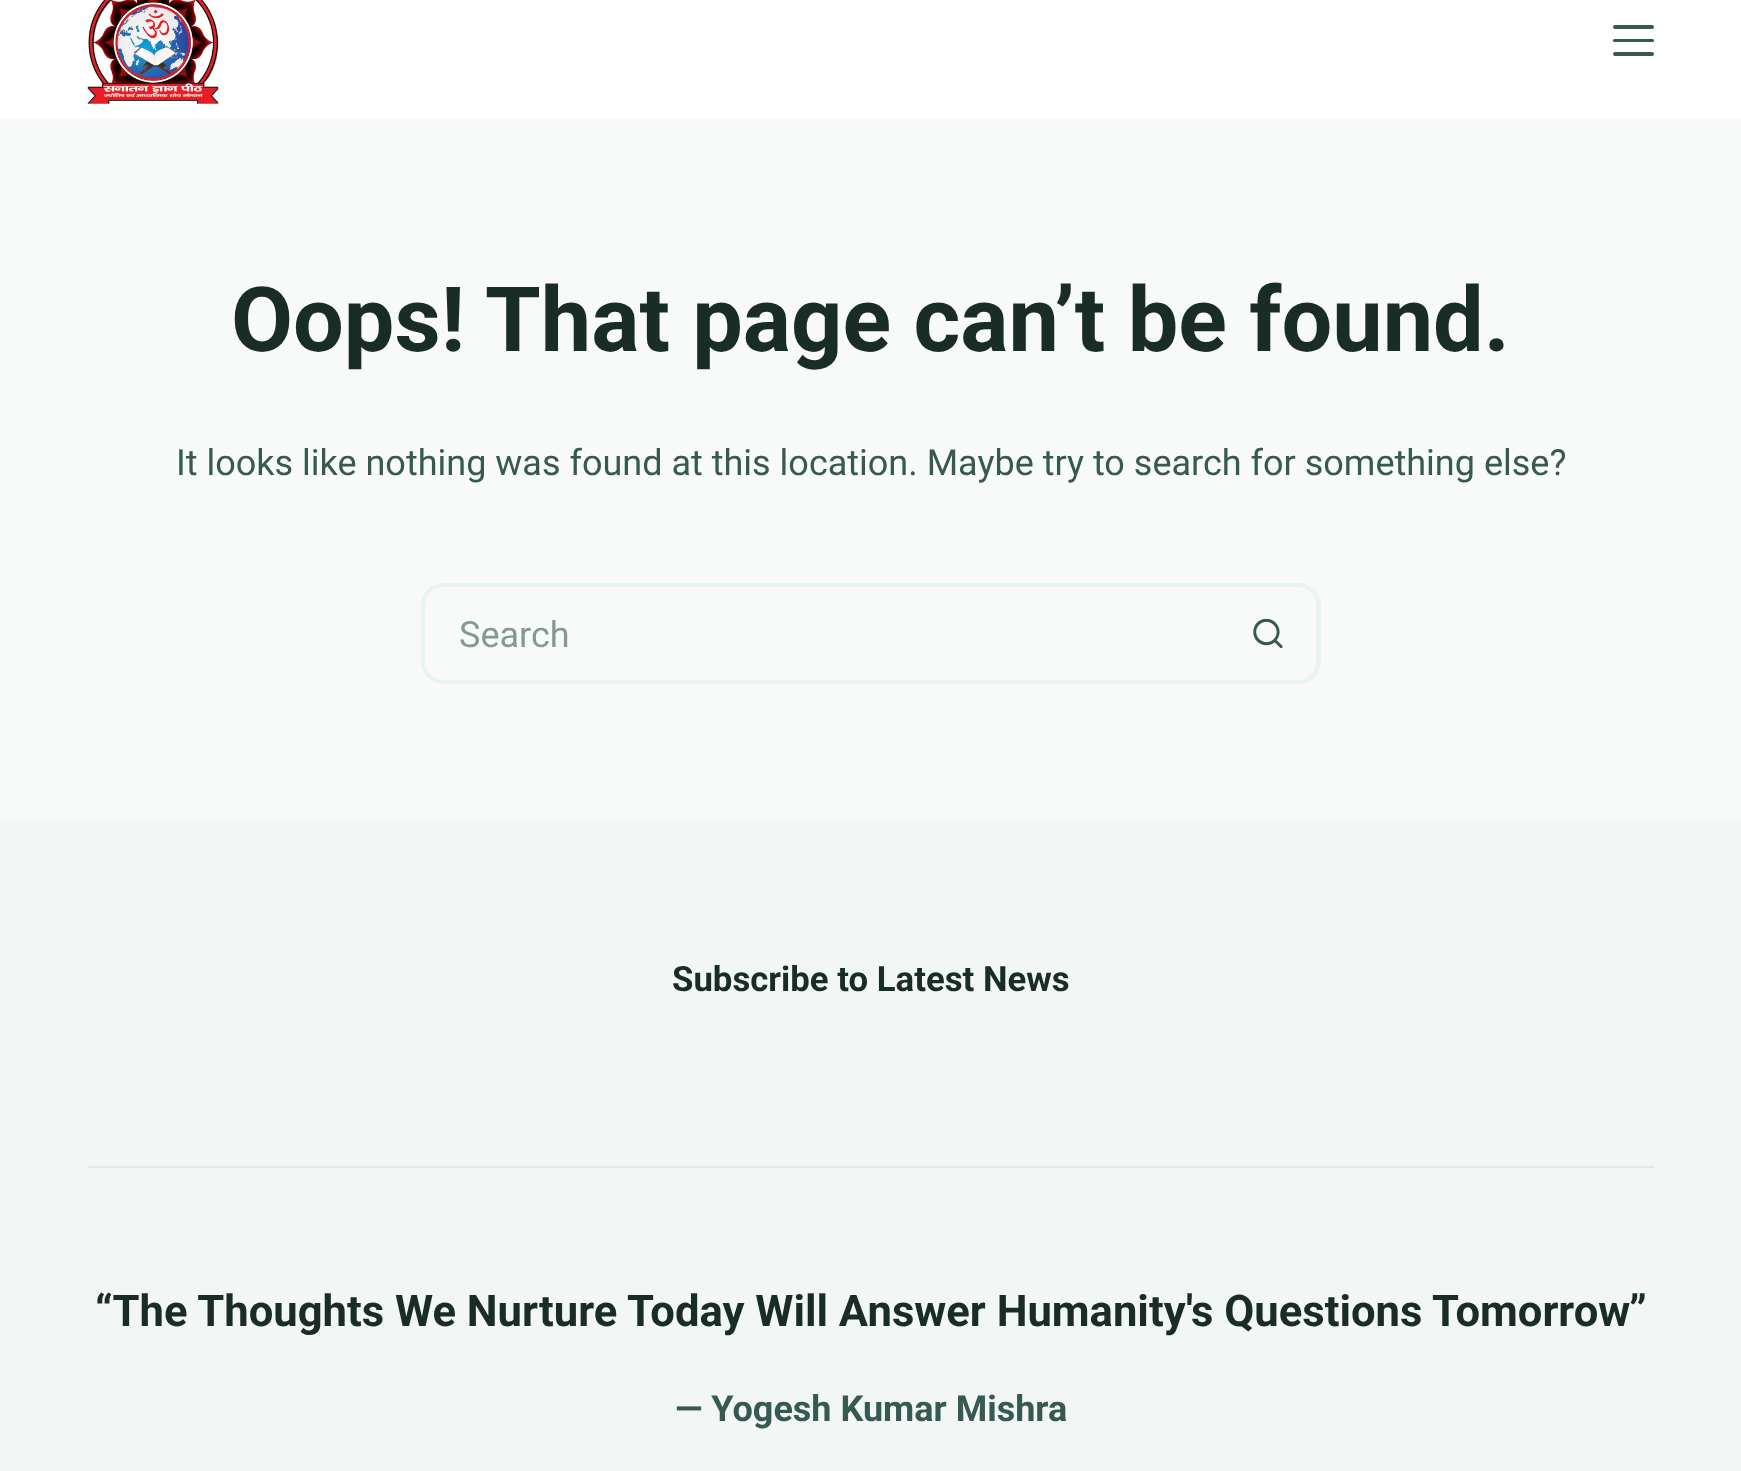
<!DOCTYPE html>
<meta charset="utf-8">
<style>body { margin: 0 } canvas { display: block }</style>
<canvas id="canvas" width="1741" height="1471"></canvas>
<img id="img1" src="images/1.png" hidden>
<img id="img2" src="images/2.png" hidden>
<script>
window.onload = function () {
    const canvas = document.getElementById('canvas');
    const context = canvas.getContext('2d');
    context.miterLimit = 4;
    context.fontKerning = 'normal';

    context.fillStyle = 'rgb(248, 250, 250)';
    context.fillRect(0, 0, 1741, 1471);
    context.fillStyle = 'rgb(255, 255, 255)';
    context.fillRect(0, 0, 1741, 119);
    context.drawImage(document.getElementById('img1'), 87, 0, 132, 104);
    context.fillStyle = 'rgb(54, 89, 81)';
    context.beginPath();
    context.roundRect(1613, 25, 41, 4, 2);
    context.fill();
    context.beginPath();
    context.roundRect(1613, 39, 41, 3, 1.5);
    context.fill();
    context.beginPath();
    context.roundRect(1613, 52, 41, 4, 2);
    context.fill();
    context.fillStyle = 'rgb(231, 244, 241)';
    context.beginPath();
    context.moveTo(443, 583);
    context.lineTo(1220, 583);
    context.lineTo(1220, 684);
    context.lineTo(443, 684);
    context.bezierCurveTo(431, 684, 421, 674, 421, 662);
    context.lineTo(421, 605);
    context.bezierCurveTo(421, 593, 431, 583, 443, 583);
    context.closePath();
    context.moveTo(443, 587);
    context.lineTo(1220, 587);
    context.lineTo(1220, 680);
    context.lineTo(443, 680);
    context.bezierCurveTo(433, 680, 425, 671, 425, 662);
    context.lineTo(425, 605);
    context.bezierCurveTo(425, 595, 433, 587, 443, 587);
    context.closePath();
    context.fill('evenodd');
    context.beginPath();
    context.moveTo(1220, 583);
    context.lineTo(1298, 583);
    context.bezierCurveTo(1311, 583, 1321, 593, 1321, 605);
    context.lineTo(1321, 662);
    context.bezierCurveTo(1321, 674, 1311, 684, 1298, 684);
    context.lineTo(1220, 684);
    context.closePath();
    context.moveTo(1220, 587);
    context.lineTo(1298, 587);
    context.bezierCurveTo(1308, 587, 1316, 595, 1316, 605);
    context.lineTo(1316, 662);
    context.bezierCurveTo(1316, 671, 1308, 680, 1298, 680);
    context.lineTo(1220, 680);
    context.closePath();
    context.fill('evenodd');
    context.drawImage(document.getElementById('img2'), 1253, 619, 30, 29);
    context.fillStyle = 'rgb(242, 247, 246)';
    context.fillRect(0, 819, 1741, 652);
    context.fillStyle = 'rgb(222, 235, 232)';
    context.fillRect(88, 1166, 1566, 2);
    context.font = 'bold 90px Roboto';
    context.fillStyle = 'rgb(25, 44, 39)';
    context.fillText('Oops! That page can’t be found.', 231, 351);
    context.font = '36px Roboto';
    context.fillStyle = 'rgb(54, 89, 81)';
    context.fillText('It looks like nothing was found at this location. Maybe try to search for something else?', 176, 475);
    context.fillStyle = 'rgb(132, 153, 149)';
    context.fillText('Search', 459, 647);
    context.font = 'bold 34.75px Roboto';
    context.fillStyle = 'rgb(25, 44, 39)';
    context.fillText('Subscribe to Latest News', 672, 991);
    context.font = 'bold 43.6px Roboto';
    context.fillText('“The Thoughts We Nurture Today Will Answer Humanity\'s Questions Tomorrow', 95, 1326);
    context.fillText('”', 1629, 1326);
    context.font = 'bold 36px Roboto';
    context.fillStyle = 'rgb(54, 89, 81)';
    context.fillText('— Yogesh Kumar Mishra', 675, 1421);
};
</script>
